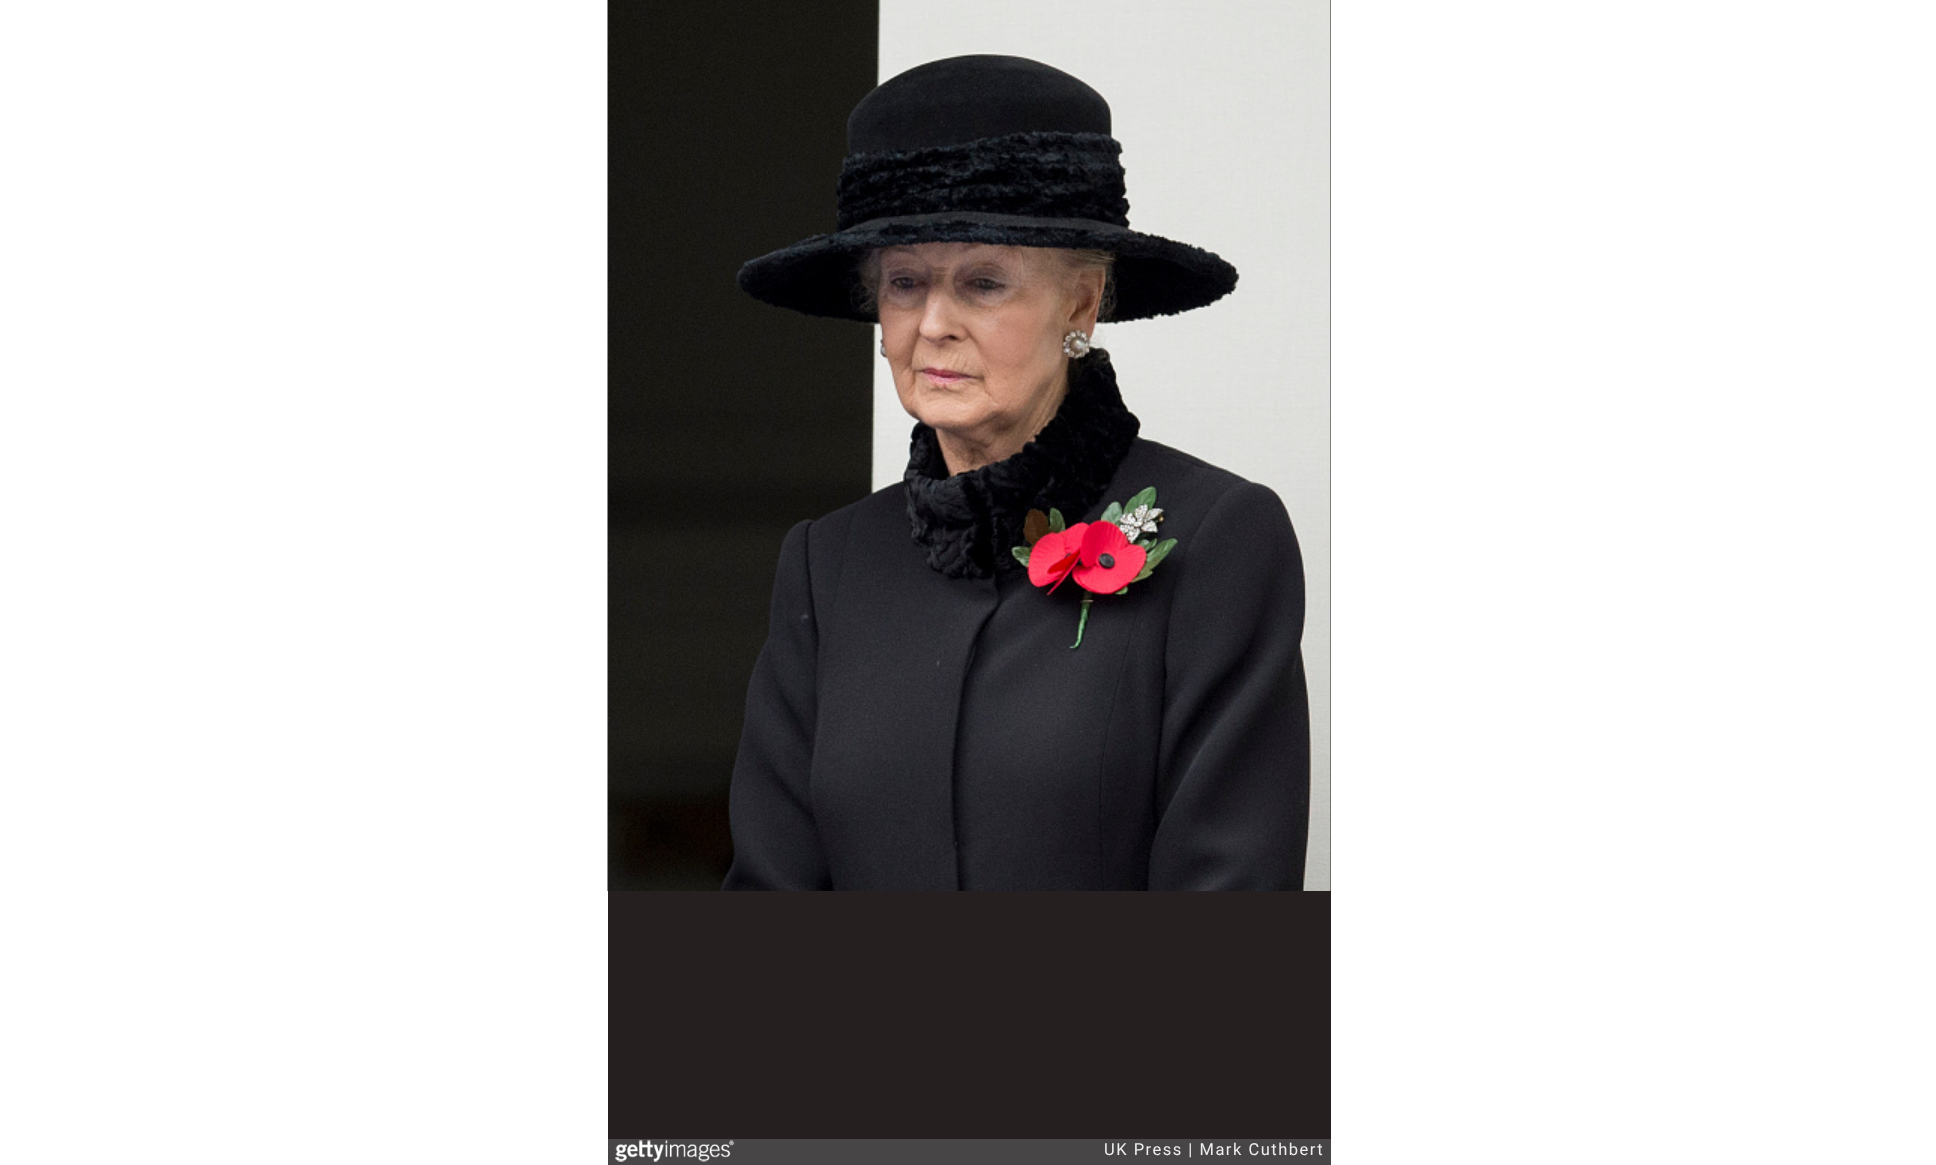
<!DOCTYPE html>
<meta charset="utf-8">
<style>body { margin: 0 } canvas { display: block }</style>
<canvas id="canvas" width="1936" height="1165"></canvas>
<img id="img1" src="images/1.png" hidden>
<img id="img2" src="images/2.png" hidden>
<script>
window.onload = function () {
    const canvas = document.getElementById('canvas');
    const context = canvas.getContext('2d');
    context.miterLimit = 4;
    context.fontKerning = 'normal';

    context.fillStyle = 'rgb(255, 255, 255)';
    context.fillRect(0, 0, 1936, 1165);
    context.fillStyle = 'rgb(37, 31, 32)';
    context.fillRect(608, 0, 723, 1139);
    context.drawImage(document.getElementById('img1'), 607, 0, 724, 891);
    context.fillStyle = 'rgb(71, 69, 69)';
    context.fillRect(608, 1139, 723, 26);
    context.drawImage(document.getElementById('img2'), 615, 1140, 120, 22);
    context.letterSpacing = '1.5px';
    context.font = '16.5px Roboto';
    context.fillStyle = 'rgb(238, 238, 238)';
    context.fillText('UK Press | Mark Cuthbert', 1104, 1155);
};
</script>
